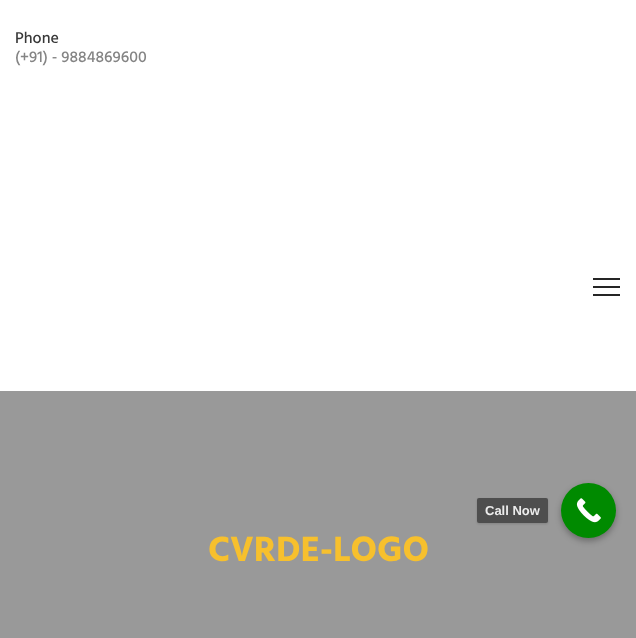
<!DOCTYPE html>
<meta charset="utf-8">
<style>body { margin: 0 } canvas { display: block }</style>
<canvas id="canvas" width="636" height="638"></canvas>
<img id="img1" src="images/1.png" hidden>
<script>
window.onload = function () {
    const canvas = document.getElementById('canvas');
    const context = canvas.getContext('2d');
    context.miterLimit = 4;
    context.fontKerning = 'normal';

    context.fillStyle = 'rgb(153, 153, 153)';
    context.fillRect(0, 0, 636, 638);
    context.fillStyle = 'rgb(255, 255, 255)';
    context.fillRect(0, 0, 636, 391);
    context.fillStyle = 'rgb(37, 37, 37)';
    context.fillRect(593, 286, 27, 2);
    context.fillRect(593, 278, 27, 2);
    context.fillRect(593, 294, 27, 2);
    context.fillStyle = 'rgba(0, 0, 0, 0.3)';
    context.filter = 'blur(3px)';
    context.beginPath();
    context.roundRect(561, 486, 55, 55, 27.5);
    context.fill();
    context.filter = 'none';
    context.fillStyle = 'rgb(0, 138, 0)';
    context.beginPath();
    context.arc(588.5, 510.5, 27.5, 0, 2 * Math.PI);
    context.fill();
    context.drawImage(document.getElementById('img1'), 576, 498, 25, 25);
    context.fillStyle = 'rgba(0, 0, 0, 0.15)';
    context.filter = 'blur(1px)';
    context.beginPath();
    context.roundRect(477, 499, 71, 25, 2);
    context.fill();
    context.filter = 'none';
    context.fillStyle = 'rgb(78, 78, 78)';
    context.beginPath();
    context.roundRect(477, 498, 71, 25, 2);
    context.fill();
    context.font = '500 16px Hind';
    context.fillStyle = 'rgb(57, 57, 57)';
    context.fillText('Phone', 15, 43);
    context.fillStyle = 'rgb(132, 132, 132)';
    context.fillText('(+91) - 9884869600', 15, 62);
    context.font = 'bold 36px Hind';
    context.fillStyle = 'rgb(247, 192, 45)';
    context.fillText('CVRDE-LOGO', 208, 561);
    context.font = 'bold 13px Liberation Sans';
    context.fillStyle = 'rgb(236, 236, 236)';
    context.fillText('Call Now', 485, 515);
};
</script>
